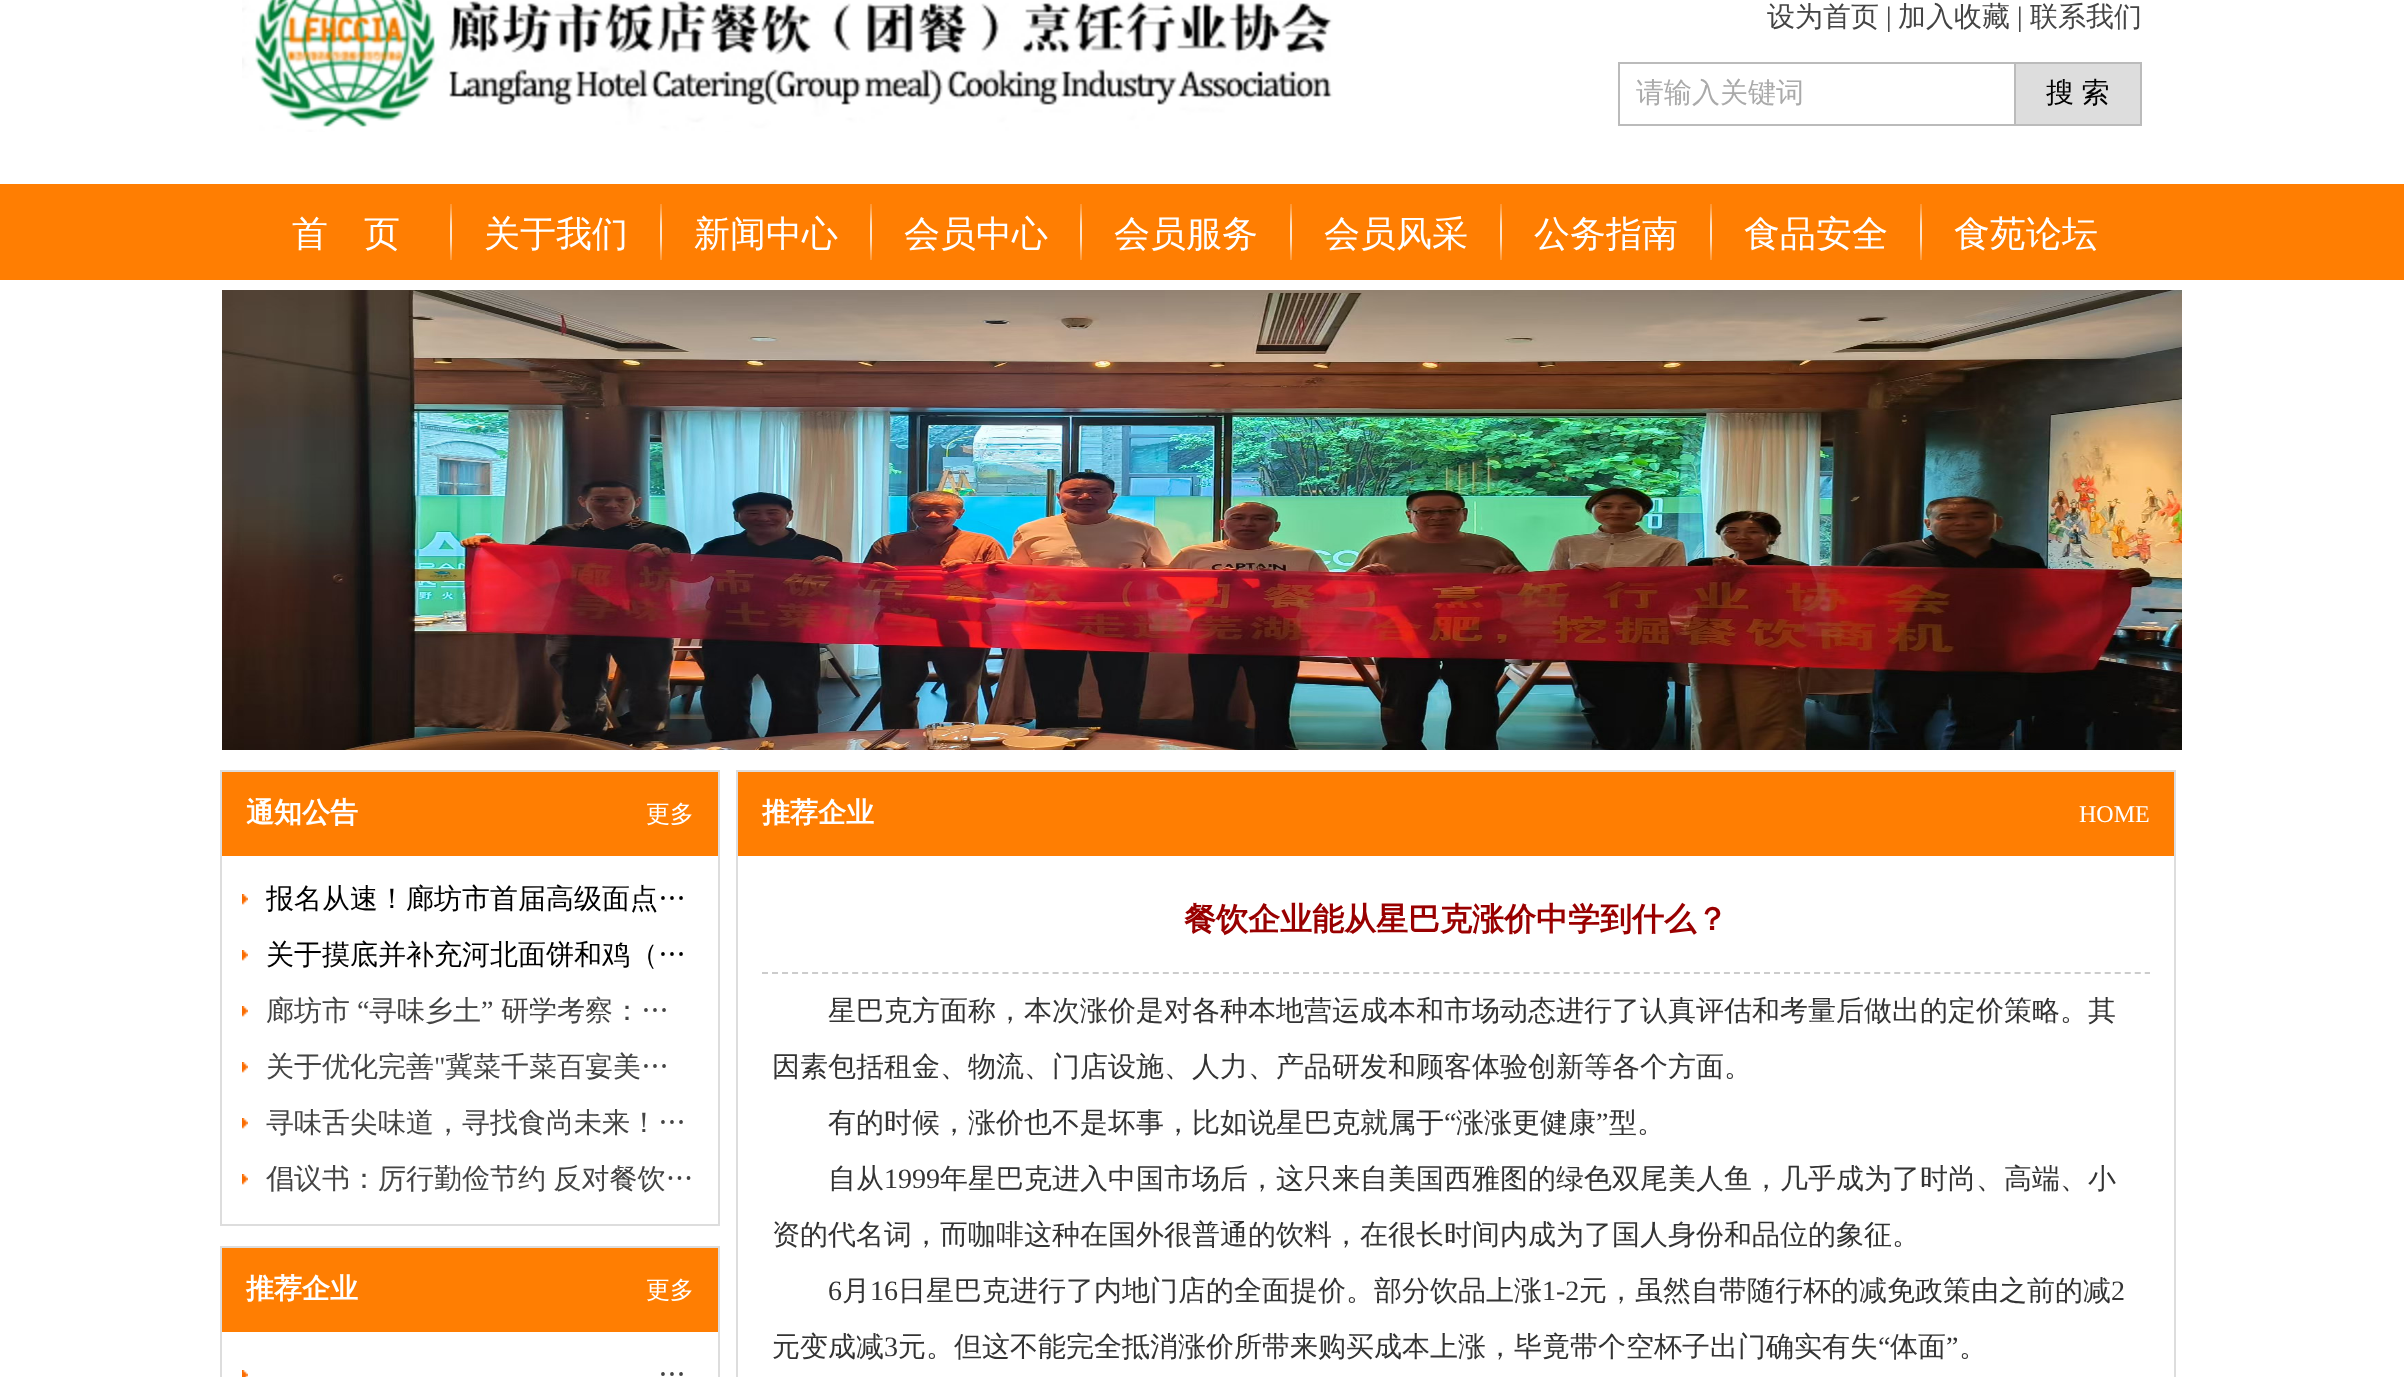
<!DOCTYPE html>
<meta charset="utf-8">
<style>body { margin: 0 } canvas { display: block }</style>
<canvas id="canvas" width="2404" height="1377"></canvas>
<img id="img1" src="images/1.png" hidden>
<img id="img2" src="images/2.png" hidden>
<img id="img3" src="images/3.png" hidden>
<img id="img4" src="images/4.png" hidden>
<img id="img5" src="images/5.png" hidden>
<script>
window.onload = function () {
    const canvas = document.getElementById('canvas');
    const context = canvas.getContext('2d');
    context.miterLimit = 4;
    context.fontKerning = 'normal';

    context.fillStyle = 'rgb(255, 255, 255)';
    context.fillRect(0, 0, 2404, 1377);
    context.drawImage(document.getElementById('img1'), 242, 0, 1091, 132);
    context.strokeStyle = 'rgb(187, 187, 187)';
    context.lineWidth = 2;
    context.strokeRect(1619, 63, 396, 62);
    context.fillStyle = 'rgb(221, 221, 221)';
    context.fillRect(2016, 64, 124, 60);
    context.fillStyle = 'rgb(187, 187, 187)';
    context.fillRect(2016, 62, 126, 2);
    context.fillRect(2140, 62, 2, 64);
    context.fillRect(2016, 124, 126, 2);
    context.fillStyle = 'rgb(255, 126, 2)';
    context.fillRect(0, 184, 2404, 96);
    context.drawImage(document.getElementById('img2'), 450, 204, 2, 56);
    context.drawImage(document.getElementById('img2'), 660, 204, 2, 56);
    context.drawImage(document.getElementById('img2'), 870, 204, 2, 56);
    context.drawImage(document.getElementById('img2'), 1080, 204, 2, 56);
    context.drawImage(document.getElementById('img2'), 1290, 204, 2, 56);
    context.drawImage(document.getElementById('img2'), 1500, 204, 2, 56);
    context.drawImage(document.getElementById('img2'), 1710, 204, 2, 56);
    context.drawImage(document.getElementById('img2'), 1920, 204, 2, 56);
    context.drawImage(document.getElementById('img3'), 222, 290, 1960, 460);
    context.strokeStyle = 'rgb(221, 221, 221)';
    context.strokeRect(221, 771, 498, 454);
    context.fillRect(222, 772, 496, 84);
    context.drawImage(document.getElementById('img4'), 242, 894, 6, 11);
    context.drawImage(document.getElementById('img4'), 242, 950, 6, 11);
    context.drawImage(document.getElementById('img4'), 242, 1006, 6, 11);
    context.drawImage(document.getElementById('img4'), 242, 1062, 6, 11);
    context.drawImage(document.getElementById('img4'), 242, 1118, 6, 11);
    context.drawImage(document.getElementById('img4'), 242, 1174, 6, 11);
    context.strokeRect(221, 1247, 498, 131);
    context.fillRect(222, 1248, 496, 84);
    context.drawImage(document.getElementById('img5'), 242, 1370, 6, 7);
    context.strokeRect(737, 771, 1438, 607);
    context.fillRect(738, 772, 1436, 84);
    context.beginPath();
    context.moveTo(762, 973);
    context.lineTo(2150, 973);
    context.strokeStyle = 'rgb(204, 204, 204)';
    context.setLineDash([6, 4.02]);
    context.stroke();
    context.font = '500 28px WenQuanYi Zen Hei';
    context.fillStyle = 'rgb(68, 68, 68)';
    context.fillText('设为首页', 1767, 26);
    context.font = '28px Liberation Serif';
    context.fillStyle = 'rgb(51, 51, 51)';
    context.fillText('|', 1886, 26);
    context.font = '500 28px WenQuanYi Zen Hei';
    context.fillStyle = 'rgb(68, 68, 68)';
    context.fillText('加入收藏', 1898, 26);
    context.font = '28px Liberation Serif';
    context.fillStyle = 'rgb(51, 51, 51)';
    context.fillText('|', 2017, 26);
    context.font = '500 28px WenQuanYi Zen Hei';
    context.fillStyle = 'rgb(68, 68, 68)';
    context.fillText('联系我们', 2030, 26);
    context.fillStyle = 'rgb(170, 170, 170)';
    context.fillText('请输入关键词', 1636, 102);
    context.wordSpacing = '-1px';
    context.fillStyle = 'rgb(0, 0, 0)';
    context.fillText('搜 索', 2046, 102);
    context.wordSpacing = '0px';
    context.font = '500 36px WenQuanYi Zen Hei';
    context.fillStyle = 'rgb(255, 255, 255)';
    context.fillText('首　页', 292, 246);
    context.fillText('关于我们', 484, 246);
    context.fillText('新闻中心', 694, 246);
    context.fillText('会员中心', 904, 246);
    context.fillText('会员服务', 1114, 246);
    context.fillText('会员风采', 1324, 246);
    context.fillText('公务指南', 1534, 246);
    context.fillText('食品安全', 1744, 246);
    context.fillText('食苑论坛', 1954, 246);
    context.font = 'bold 28px WenQuanYi Zen Hei';
    context.fillText('通知公告', 246, 822);
    context.font = '500 24px WenQuanYi Zen Hei';
    context.fillText('更多', 646, 822);
    context.font = '500 28px WenQuanYi Zen Hei';
    context.fillStyle = 'rgb(0, 0, 0)';
    context.fillText('报名从速！廊坊市首届高级面点…', 266, 908);
    context.fillText('关于摸底并补充河北面饼和鸡（…', 266, 964);
    context.fillStyle = 'rgb(68, 68, 68)';
    context.fillText('廊坊市', 266, 1020);
    context.font = '28px Liberation Serif';
    context.fillText('“', 357, 1020);
    context.font = '500 28px WenQuanYi Zen Hei';
    context.fillText('寻味乡土', 369, 1020);
    context.font = '28px Liberation Serif';
    context.fillText('”', 481, 1020);
    context.font = '500 28px WenQuanYi Zen Hei';
    context.fillText('研学考察：…', 501, 1020);
    context.fillText('关于优化完善', 266, 1076);
    context.font = '28px Liberation Serif';
    context.fillText('"', 434, 1076);
    context.font = '500 28px WenQuanYi Zen Hei';
    context.fillText('冀菜千菜百宴美…', 445, 1076);
    context.fillText('寻味舌尖味道，寻找食尚未来！…', 266, 1132);
    context.wordSpacing = '-1px';
    context.fillText('倡议书：厉行勤俭节约 反对餐饮…', 266, 1188);
    context.wordSpacing = '0px';
    context.font = 'bold 28px WenQuanYi Zen Hei';
    context.fillStyle = 'rgb(255, 255, 255)';
    context.fillText('推荐企业', 246, 1298);
    context.font = '500 24px WenQuanYi Zen Hei';
    context.fillText('更多', 646, 1298);
    context.font = '500 28px WenQuanYi Zen Hei';
    context.fillStyle = 'rgb(68, 68, 68)';
    context.fillText('…', 658, 1384);
    context.font = 'bold 28px WenQuanYi Zen Hei';
    context.fillStyle = 'rgb(255, 255, 255)';
    context.fillText('推荐企业', 762, 822);
    context.font = '24px Liberation Serif';
    context.fillText('HOME', 2079, 822);
    context.font = 'bold 32px WenQuanYi Zen Hei';
    context.fillStyle = 'rgb(153, 0, 0)';
    context.fillText('餐饮企业能从星巴克涨价中学到什么？', 1184, 930);
    context.font = '500 28px WenQuanYi Zen Hei';
    context.fillStyle = 'rgb(51, 51, 51)';
    context.fillText('星巴克方面称，本次涨价是对各种本地营运成本和市场动态进行了认真评估和考量后做出的定价策略。其', 828, 1020);
    context.fillText('因素包括租金、物流、门店设施、人力、产品研发和顾客体验创新等各个方面。', 772, 1076);
    context.fillText('有的时候，涨价也不是坏事，比如说星巴克就属于', 828, 1132);
    context.font = '28px Liberation Serif';
    context.fillText('“', 1444, 1132);
    context.font = '500 28px WenQuanYi Zen Hei';
    context.fillText('涨涨更健康', 1456, 1132);
    context.font = '28px Liberation Serif';
    context.fillText('”', 1596, 1132);
    context.font = '500 28px WenQuanYi Zen Hei';
    context.fillText('型。', 1609, 1132);
    context.fillText('自从', 828, 1188);
    context.font = '28px Liberation Serif';
    context.fillText('1999', 884, 1188);
    context.font = '500 28px WenQuanYi Zen Hei';
    context.fillText('年星巴克进入中国市场后，这只来自美国西雅图的绿色双尾美人鱼，几乎成为了时尚、高端、小', 940, 1188);
    context.fillText('资的代名词，而咖啡这种在国外很普通的饮料，在很长时间内成为了国人身份和品位的象征。', 772, 1244);
    context.font = '28px Liberation Serif';
    context.fillText('6', 828, 1300);
    context.font = '500 28px WenQuanYi Zen Hei';
    context.fillText('月', 842, 1300);
    context.font = '28px Liberation Serif';
    context.fillText('16', 870, 1300);
    context.font = '500 28px WenQuanYi Zen Hei';
    context.fillText('日星巴克进行了内地门店的全面提价。部分饮品上涨', 898, 1300);
    context.font = '28px Liberation Serif';
    context.fillText('1-2', 1542, 1300);
    context.font = '500 28px WenQuanYi Zen Hei';
    context.fillText('元，虽然自带随行杯的减免政策由之前的减', 1579, 1300);
    context.font = '28px Liberation Serif';
    context.fillText('2', 2111, 1300);
    context.font = '500 28px WenQuanYi Zen Hei';
    context.fillText('元变成减', 772, 1356);
    context.font = '28px Liberation Serif';
    context.fillText('3', 884, 1356);
    context.font = '500 28px WenQuanYi Zen Hei';
    context.fillText('元。但这不能完全抵消涨价所带来购买成本上涨，毕竟带个空杯子出门确实有失', 898, 1356);
    context.font = '28px Liberation Serif';
    context.fillText('“', 1878, 1356);
    context.font = '500 28px WenQuanYi Zen Hei';
    context.fillText('体面', 1890, 1356);
    context.font = '28px Liberation Serif';
    context.fillText('”', 1946, 1356);
    context.font = '500 28px WenQuanYi Zen Hei';
    context.fillText('。', 1959, 1356);
};
</script>
